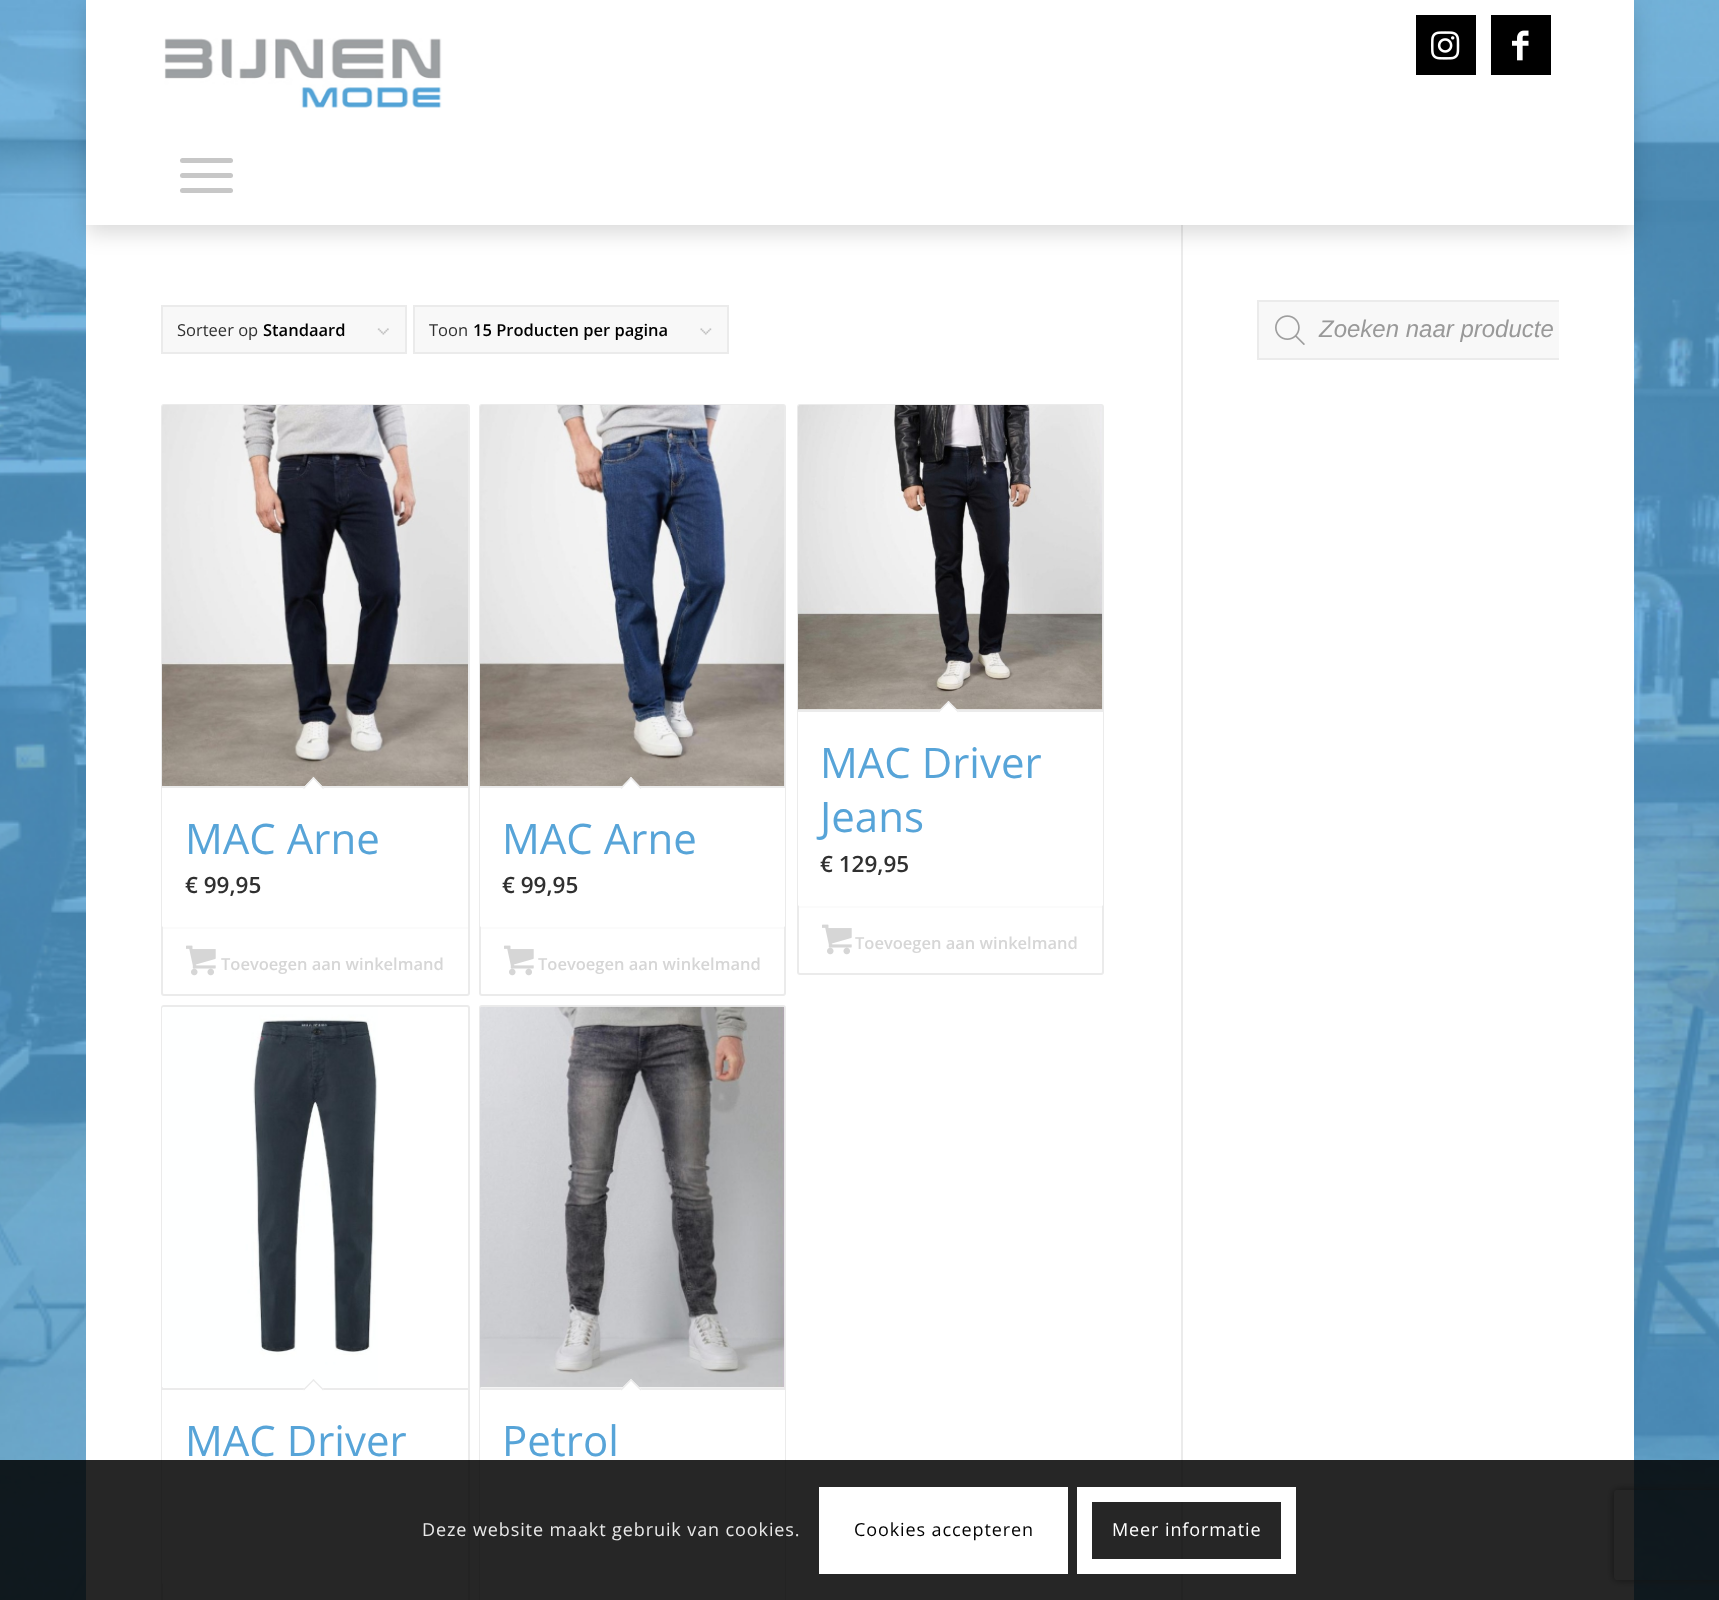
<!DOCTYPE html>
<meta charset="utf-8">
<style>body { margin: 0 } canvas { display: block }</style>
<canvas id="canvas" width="1719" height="1600"></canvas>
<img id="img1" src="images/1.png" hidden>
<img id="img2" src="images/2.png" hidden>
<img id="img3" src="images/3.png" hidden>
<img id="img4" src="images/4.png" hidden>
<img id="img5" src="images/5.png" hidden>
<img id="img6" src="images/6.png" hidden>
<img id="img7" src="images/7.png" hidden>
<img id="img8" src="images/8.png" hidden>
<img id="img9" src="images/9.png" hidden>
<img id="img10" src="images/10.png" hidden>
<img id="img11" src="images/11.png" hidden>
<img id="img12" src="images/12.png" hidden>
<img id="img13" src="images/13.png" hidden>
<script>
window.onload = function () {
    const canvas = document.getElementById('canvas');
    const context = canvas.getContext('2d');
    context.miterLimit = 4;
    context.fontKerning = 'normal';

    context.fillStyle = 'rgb(255, 255, 255)';
    context.fillRect(0, 0, 1719, 1600);
    context.drawImage(document.getElementById('img1'), 0, 0, 1719, 1600);
    context.fillRect(86, 225, 1548, 1375);
    context.fillStyle = 'rgb(235, 235, 235)';
    context.fillRect(1181, 225, 2, 1375);
    context.fillStyle = 'rgba(0, 0, 0, 0.15)';
    context.filter = 'blur(11px)';
    context.beginPath();
    context.rect(86, 8, 1548, 225);
    context.fill();
    context.filter = 'none';
    context.fillStyle = 'rgb(255, 255, 255)';
    context.fillRect(86, 0, 1548, 225);
    context.drawImage(document.getElementById('img2'), 164, 38, 278, 70);
    context.fillStyle = 'rgb(0, 0, 0)';
    context.fillRect(1416, 15, 60, 60);
    context.drawImage(document.getElementById('img3'), 1431, 31, 29, 29);
    context.fillRect(1491, 15, 60, 60);
    context.drawImage(document.getElementById('img4'), 1512, 30, 17, 31);
    context.fillStyle = 'rgb(199, 199, 199)';
    context.beginPath();
    context.roundRect(180, 173, 53, 5, 2.5);
    context.fill();
    context.beginPath();
    context.roundRect(180, 158, 53, 5, 2.5);
    context.fill();
    context.beginPath();
    context.roundRect(180, 188, 53, 5, 2.5);
    context.fill();
    context.fillStyle = 'rgb(248, 248, 248)';
    context.fillRect(163, 307, 242, 45);
    context.drawImage(document.getElementById('img5'), 377, 328, 12, 7);
    context.strokeStyle = 'rgb(235, 235, 235)';
    context.lineWidth = 2;
    context.strokeRect(162, 306, 244, 47);
    context.fillRect(415, 307, 312, 45);
    context.drawImage(document.getElementById('img6'), 700, 328, 12, 7);
    context.strokeRect(414, 306, 314, 47);
    context.beginPath();
    context.roundRect(162, 405, 307, 590, 2);
    context.stroke();
    context.drawImage(document.getElementById('img7'), 162, 405, 306, 381);
    context.fillStyle = 'rgb(255, 255, 255)';
    context.beginPath();
    context.roundRect(162, 786, 306, 141, [0, 0, 1.5, 1.5]);
    context.fill();
    context.fillStyle = 'rgb(235, 235, 235)';
    context.fillRect(162, 786, 306, 2);
    context.fillStyle = 'rgb(255, 255, 255)';
    context.beginPath();
    context.moveTo(313.5, 777);
    context.lineTo(324, 788);
    context.lineTo(313.5, 798.5);
    context.lineTo(303, 788);
    context.closePath();
    context.fill();
    context.fillStyle = 'rgb(235, 235, 235)';
    context.beginPath();
    context.moveTo(313.5, 777);
    context.lineTo(324, 788);
    context.lineTo(323, 789);
    context.lineTo(312.5, 778);
    context.closePath();
    context.fill();
    context.beginPath();
    context.moveTo(313.5, 777);
    context.lineTo(314.5, 778);
    context.lineTo(304, 789);
    context.lineTo(303, 788);
    context.closePath();
    context.fill();
    context.fillStyle = 'rgba(235, 235, 235, 0.2)';
    context.fillRect(162, 927, 306, 2);
    context.drawImage(document.getElementById('img8'), 186, 945, 30, 31);
    context.beginPath();
    context.roundRect(480, 405, 305, 590, 2);
    context.stroke();
    context.drawImage(document.getElementById('img9'), 480, 405, 305, 381);
    context.fillStyle = 'rgb(255, 255, 255)';
    context.beginPath();
    context.roundRect(480, 786, 305, 141, [0, 0, 1.5, 1.5]);
    context.fill();
    context.fillStyle = 'rgb(235, 235, 235)';
    context.fillRect(480, 786, 305, 2);
    context.fillStyle = 'rgb(255, 255, 255)';
    context.beginPath();
    context.moveTo(631, 777);
    context.lineTo(641.5, 788);
    context.lineTo(631, 798.5);
    context.lineTo(620.5, 788);
    context.closePath();
    context.fill();
    context.fillStyle = 'rgb(235, 235, 235)';
    context.beginPath();
    context.moveTo(631, 777);
    context.lineTo(641.5, 788);
    context.lineTo(640.5, 789);
    context.lineTo(630, 778);
    context.closePath();
    context.fill();
    context.beginPath();
    context.moveTo(631, 777);
    context.lineTo(632, 778);
    context.lineTo(621.5, 789);
    context.lineTo(620.5, 788);
    context.closePath();
    context.fill();
    context.fillStyle = 'rgba(235, 235, 235, 0.2)';
    context.fillRect(480, 927, 305, 2);
    context.drawImage(document.getElementById('img8'), 504, 945, 30, 31);
    context.beginPath();
    context.roundRect(798, 405, 305, 569, 2);
    context.stroke();
    context.drawImage(document.getElementById('img10'), 798, 405, 305, 305);
    context.fillStyle = 'rgb(255, 255, 255)';
    context.beginPath();
    context.roundRect(798, 710, 305, 196, [0, 0, 1.5, 1.5]);
    context.fill();
    context.fillStyle = 'rgb(235, 235, 235)';
    context.fillRect(798, 710, 305, 2);
    context.fillStyle = 'rgb(255, 255, 255)';
    context.beginPath();
    context.moveTo(948.5, 701);
    context.lineTo(959, 711.5);
    context.lineTo(948.5, 722);
    context.lineTo(938, 711.5);
    context.closePath();
    context.fill();
    context.fillStyle = 'rgb(235, 235, 235)';
    context.beginPath();
    context.moveTo(948.5, 701);
    context.lineTo(959, 711.5);
    context.lineTo(958, 712.5);
    context.lineTo(947.5, 702);
    context.closePath();
    context.fill();
    context.beginPath();
    context.moveTo(948.5, 701);
    context.lineTo(949.5, 702);
    context.lineTo(939, 712.5);
    context.lineTo(938, 711.5);
    context.closePath();
    context.fill();
    context.fillStyle = 'rgba(235, 235, 235, 0.2)';
    context.fillRect(798, 906, 305, 2);
    context.drawImage(document.getElementById('img8'), 822, 924, 30, 31);
    context.beginPath();
    context.roundRect(162, 1006, 307, 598, 2);
    context.stroke();
    context.drawImage(document.getElementById('img11'), 162, 1007, 216, 381);
    context.fillStyle = 'rgb(255, 255, 255)';
    context.beginPath();
    context.roundRect(162, 1388, 306, 196, [0, 0, 1.5, 1.5]);
    context.fill();
    context.fillStyle = 'rgb(235, 235, 235)';
    context.fillRect(162, 1388, 306, 2);
    context.fillStyle = 'rgb(255, 255, 255)';
    context.beginPath();
    context.moveTo(313.5, 1379);
    context.lineTo(324, 1389.5);
    context.lineTo(313.5, 1400.5);
    context.lineTo(303, 1389.5);
    context.closePath();
    context.fill();
    context.fillStyle = 'rgb(235, 235, 235)';
    context.beginPath();
    context.moveTo(313.5, 1379);
    context.lineTo(324, 1389.5);
    context.lineTo(323, 1390.5);
    context.lineTo(312.5, 1380);
    context.closePath();
    context.fill();
    context.beginPath();
    context.moveTo(313.5, 1379);
    context.lineTo(314.5, 1380);
    context.lineTo(304, 1390.5);
    context.lineTo(303, 1389.5);
    context.closePath();
    context.fill();
    context.fillStyle = 'rgba(235, 235, 235, 0.2)';
    context.fillRect(162, 1584, 306, 2);
    context.beginPath();
    context.roundRect(480, 1006, 305, 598, 2);
    context.stroke();
    context.drawImage(document.getElementById('img12'), 480, 1006, 305, 382);
    context.fillStyle = 'rgb(255, 255, 255)';
    context.fillRect(480, 1390, 305, 210);
    context.fillStyle = 'rgb(235, 235, 235)';
    context.fillRect(480, 1388, 305, 2);
    context.fillStyle = 'rgb(255, 255, 255)';
    context.beginPath();
    context.moveTo(631, 1379);
    context.lineTo(641.5, 1389.5);
    context.lineTo(631, 1400.5);
    context.lineTo(620.5, 1389.5);
    context.closePath();
    context.fill();
    context.fillStyle = 'rgb(235, 235, 235)';
    context.beginPath();
    context.moveTo(631, 1379);
    context.lineTo(641.5, 1389.5);
    context.lineTo(640.5, 1390.5);
    context.lineTo(630, 1380);
    context.closePath();
    context.fill();
    context.beginPath();
    context.moveTo(631, 1379);
    context.lineTo(632, 1380);
    context.lineTo(621.5, 1390.5);
    context.lineTo(620.5, 1389.5);
    context.closePath();
    context.fill();
    context.fillStyle = 'rgb(248, 248, 248)';
    context.fillRect(1259, 302, 300, 56);
    context.save();
    context.beginPath();
    context.rect(1182, 225, 377, 240);
    context.clip();
    context.strokeRect(1258, 301, 343, 58);
    context.restore();
    context.drawImage(document.getElementById('img13'), 1275, 315, 30, 30);
    context.save();
    context.beginPath();
    context.moveTo(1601, 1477);
    context.lineTo(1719, 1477);
    context.lineTo(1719, 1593);
    context.lineTo(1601, 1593);
    context.closePath();
    context.moveTo(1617, 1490);
    context.lineTo(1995, 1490);
    context.bezierCurveTo(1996.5, 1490, 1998, 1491.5, 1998, 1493);
    context.lineTo(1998, 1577);
    context.bezierCurveTo(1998, 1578.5, 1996.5, 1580, 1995, 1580);
    context.lineTo(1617, 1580);
    context.bezierCurveTo(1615.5, 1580, 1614, 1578.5, 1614, 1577);
    context.lineTo(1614, 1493);
    context.bezierCurveTo(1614, 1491.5, 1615.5, 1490, 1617, 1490);
    context.closePath();
    context.clip('evenodd');
    context.fillStyle = 'rgb(128, 128, 128)';
    context.filter = 'blur(4px)';
    context.beginPath();
    context.roundRect(1614, 1490, 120, 90, 3);
    context.fill();
    context.filter = 'none';
    context.restore();
    context.fillStyle = 'rgba(0, 0, 0, 0.85)';
    context.fillRect(0, 1460, 1719, 140);
    context.fillStyle = 'rgb(255, 255, 255)';
    context.fillRect(819, 1487, 249, 87);
    context.strokeStyle = 'rgb(255, 255, 255)';
    context.lineWidth = 15;
    context.strokeRect(1084.5, 1494.5, 204, 72);
    context.font = '16.5px Open Sans';
    context.fillStyle = 'rgb(48, 48, 48)';
    context.fillText('Sorteer op', 177, 336);
    context.font = '600 16.5px Open Sans';
    context.fillStyle = 'rgb(0, 0, 0)';
    context.fillText('Standaard', 263, 336);
    context.font = '16.5px Open Sans';
    context.fillStyle = 'rgb(48, 48, 48)';
    context.fillText('Toon', 429, 336);
    context.font = '600 16.5px Open Sans';
    context.fillStyle = 'rgb(0, 0, 0)';
    context.fillText('15 Producten per pagina', 473, 336);
    context.font = '42px Open Sans';
    context.fillStyle = 'rgb(87, 164, 216)';
    context.fillText('MAC Arne', 185, 854);
    context.font = '600 22.5px Open Sans';
    context.fillStyle = 'rgb(48, 48, 48)';
    context.fillText('€ 99,95', 185, 893);
    context.font = '600 16.5px Open Sans';
    context.fillStyle = 'rgb(214, 214, 214)';
    context.fillText('Toevoegen aan winkelmand', 221, 970);
    context.font = '42px Open Sans';
    context.fillStyle = 'rgb(87, 164, 216)';
    context.fillText('MAC Arne', 502, 854);
    context.font = '600 22.5px Open Sans';
    context.fillStyle = 'rgb(48, 48, 48)';
    context.fillText('€ 99,95', 502, 893);
    context.font = '600 16.5px Open Sans';
    context.fillStyle = 'rgb(214, 214, 214)';
    context.fillText('Toevoegen aan winkelmand', 538, 970);
    context.font = '42px Open Sans';
    context.fillStyle = 'rgb(87, 164, 216)';
    context.fillText('MAC Driver', 820, 778);
    context.fillText('Jeans', 820, 832);
    context.font = '600 22.5px Open Sans';
    context.fillStyle = 'rgb(48, 48, 48)';
    context.fillText('€ 129,95', 820, 872);
    context.font = '600 16.5px Open Sans';
    context.fillStyle = 'rgb(214, 214, 214)';
    context.fillText('Toevoegen aan winkelmand', 855, 949);
    context.font = '42px Open Sans';
    context.fillStyle = 'rgb(87, 164, 216)';
    context.fillText('MAC Driver', 185, 1456);
    context.fillText('Petrol', 502, 1456);
    context.font = 'italic 24px Liberation Sans';
    context.fillStyle = 'rgb(153, 153, 153)';
    context.fillText('Zoeken naar producte', 1319, 337);
    context.letterSpacing = '0.9px';
    context.font = '18px Open Sans';
    context.fillStyle = 'rgb(233, 233, 233)';
    context.fillText('Deze website maakt gebruik van cookies.', 422, 1536);
    context.fillStyle = 'rgb(0, 0, 0)';
    context.fillText('Cookies accepteren', 854, 1536);
    context.fillStyle = 'rgb(255, 255, 255)';
    context.fillText('Meer informatie', 1112, 1536);
};
</script>
